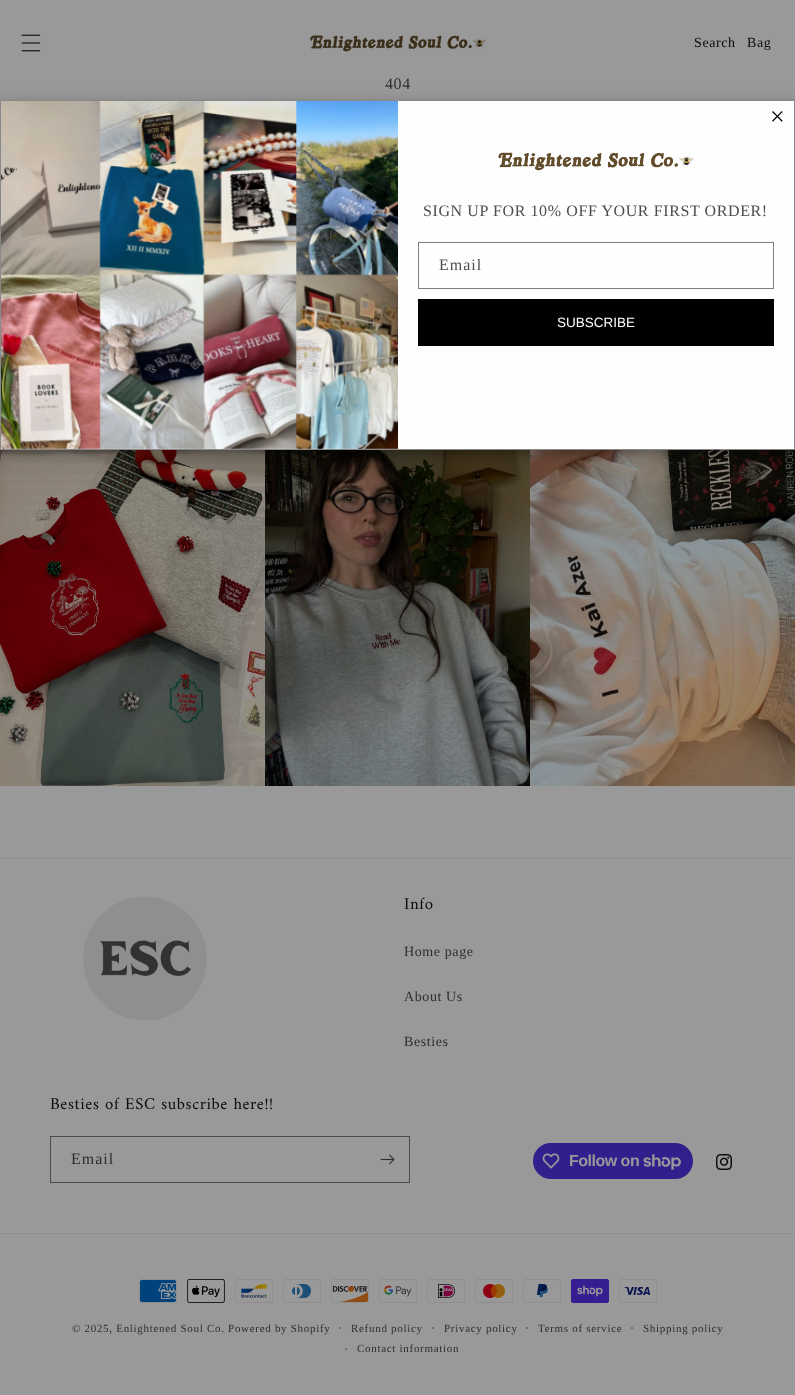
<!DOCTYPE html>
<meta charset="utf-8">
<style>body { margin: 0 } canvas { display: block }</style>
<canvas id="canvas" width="795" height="1395"></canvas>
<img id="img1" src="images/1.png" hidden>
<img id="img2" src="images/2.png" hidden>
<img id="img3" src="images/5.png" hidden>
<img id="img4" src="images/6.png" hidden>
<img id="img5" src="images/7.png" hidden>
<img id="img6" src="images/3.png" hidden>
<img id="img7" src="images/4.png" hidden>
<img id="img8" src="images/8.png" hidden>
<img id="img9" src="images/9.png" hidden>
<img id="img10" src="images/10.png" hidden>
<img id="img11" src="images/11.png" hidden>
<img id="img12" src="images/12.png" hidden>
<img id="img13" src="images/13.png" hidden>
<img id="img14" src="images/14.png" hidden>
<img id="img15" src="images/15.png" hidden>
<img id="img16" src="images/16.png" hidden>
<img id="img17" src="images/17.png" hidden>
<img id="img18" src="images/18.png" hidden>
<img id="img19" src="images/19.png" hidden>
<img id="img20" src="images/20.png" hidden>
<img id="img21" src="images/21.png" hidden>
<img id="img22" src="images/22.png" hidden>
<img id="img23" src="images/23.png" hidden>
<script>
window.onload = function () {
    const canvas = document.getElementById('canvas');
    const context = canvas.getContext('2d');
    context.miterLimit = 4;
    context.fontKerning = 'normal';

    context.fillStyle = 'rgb(153, 153, 153)';
    context.fillRect(0, 0, 795, 1395);
    context.drawImage(document.getElementById('img1'), 21, 34, 20, 18);
    context.drawImage(document.getElementById('img2'), 310, 35, 176, 17);
    context.drawImage(document.getElementById('img3'), 0, 450, 265, 336);
    context.drawImage(document.getElementById('img4'), 265, 450, 265, 336);
    context.drawImage(document.getElementById('img5'), 530, 450, 265, 336);
    context.fillStyle = 'rgba(0, 0, 0, 0.19)';
    context.filter = 'blur(10px)';
    context.beginPath();
    context.rect(0, 106, 795, 350);
    context.fill();
    context.filter = 'none';
    context.fillStyle = 'rgba(0, 0, 0, 0.2)';
    context.filter = 'blur(4px)';
    context.beginPath();
    context.rect(0, 104, 795, 350);
    context.fill();
    context.filter = 'none';
    context.fillStyle = 'rgb(254, 254, 254)';
    context.beginPath();
    context.rect(0.5, 100.5, 794, 349);
    context.fill();
    context.strokeStyle = 'rgb(136, 136, 136)';
    context.stroke();
    context.drawImage(document.getElementById('img6'), 1, 101, 397, 348);
    context.drawImage(document.getElementById('img7'), 498, 152, 196, 19);
    context.strokeStyle = 'rgb(124, 124, 124)';
    context.strokeRect(418.5, 242.5, 355, 46);
    context.fillStyle = 'rgb(0, 0, 0)';
    context.fillRect(418, 299, 356, 47);
    context.fillStyle = 'rgb(142, 142, 142)';
    context.fillRect(0, 858, 795, 1);
    context.drawImage(document.getElementById('img8'), 83, 896, 124, 125);
    context.strokeStyle = 'rgb(75, 75, 75)';
    context.strokeRect(50.5, 1136.5, 359, 46);
    context.drawImage(document.getElementById('img9'), 380, 1154, 15, 11);
    context.fillStyle = 'rgb(50, 31, 141)';
    context.beginPath();
    context.roundRect(533, 1143, 160, 36, 18);
    context.fill();
    context.drawImage(document.getElementById('img10'), 542, 1153, 18, 16);
    context.drawImage(document.getElementById('img11'), 643, 1154, 38, 16);
    context.drawImage(document.getElementById('img12'), 716, 1154, 16, 16);
    context.fillStyle = 'rgb(142, 142, 142)';
    context.fillRect(0, 1233, 795, 1);
    context.drawImage(document.getElementById('img13'), 139, 1279, 38, 24);
    context.drawImage(document.getElementById('img14'), 187, 1279, 38, 24);
    context.drawImage(document.getElementById('img15'), 235, 1279, 38, 24);
    context.drawImage(document.getElementById('img16'), 283, 1279, 38, 24);
    context.drawImage(document.getElementById('img17'), 331, 1279, 38, 24);
    context.drawImage(document.getElementById('img18'), 379, 1279, 38, 24);
    context.drawImage(document.getElementById('img19'), 427, 1279, 38, 24);
    context.drawImage(document.getElementById('img20'), 475, 1279, 38, 24);
    context.drawImage(document.getElementById('img21'), 523, 1279, 38, 24);
    context.drawImage(document.getElementById('img22'), 571, 1279, 38, 24);
    context.drawImage(document.getElementById('img23'), 619, 1279, 38, 24);
    context.letterSpacing = '0.6px';
    context.font = '14px Liberation Serif';
    context.fillStyle = 'rgb(11, 11, 11)';
    context.fillText('Search', 694, 47);
    context.fillText('Bag', 747, 47);
    context.font = '16px Liberation Serif';
    context.fillStyle = 'rgb(46, 46, 46)';
    context.fillText('404', 385, 89);
    context.font = '26px Liberation Serif';
    context.fillStyle = 'rgb(0, 0, 0)';
    context.fillText('×', 770, 125);
    context.font = '16px Liberation Serif';
    context.fillStyle = 'rgb(77, 77, 77)';
    context.fillText('SIGN UP FOR 10% OFF YOUR FIRST ORDER!', 423, 216);
    context.letterSpacing = '1px';
    context.fillText('Email', 439, 270);
    context.letterSpacing = '0px';
    context.font = '13.5px Liberation Sans';
    context.fillStyle = 'rgb(255, 255, 255)';
    context.fillText('SUBSCRIBE', 557, 327);
    context.letterSpacing = '0.6px';
    context.font = '16.75px Amiri';
    context.fillStyle = 'rgb(11, 11, 11)';
    context.fillText('Info', 404, 909);
    context.font = '14px Liberation Serif';
    context.fillStyle = 'rgb(46, 46, 46)';
    context.fillText('Home page', 404, 956);
    context.fillText('About Us', 404, 1001);
    context.fillText('Besties', 404, 1046);
    context.font = '16.75px Amiri';
    context.fillStyle = 'rgb(11, 11, 11)';
    context.fillText('Besties of ESC subscribe here!!', 50, 1109);
    context.letterSpacing = '1px';
    context.font = '16px Liberation Serif';
    context.fillStyle = 'rgb(46, 46, 46)';
    context.fillText('Email', 71, 1164);
    context.letterSpacing = '-0.5px';
    context.font = 'bold 16px Liberation Sans';
    context.fillStyle = 'rgb(153, 153, 153)';
    context.fillText('Follow on', 569, 1166);
    context.letterSpacing = '0.7px';
    context.font = '11px Liberation Serif';
    context.fillStyle = 'rgb(46, 46, 46)';
    context.fillText('© 2025, Enlightened Soul Co. Powered by Shopify', 72, 1332);
    context.font = '12px Liberation Serif';
    context.fillText('·', 338, 1332);
    context.font = '11px Liberation Serif';
    context.fillText('Refund policy', 351, 1332);
    context.font = '12px Liberation Serif';
    context.fillText('·', 431, 1332);
    context.font = '11px Liberation Serif';
    context.fillText('Privacy policy', 444, 1332);
    context.font = '12px Liberation Serif';
    context.fillText('·', 525, 1332);
    context.font = '11px Liberation Serif';
    context.fillText('Terms of service', 538, 1332);
    context.font = '12px Liberation Serif';
    context.fillText('·', 630, 1332);
    context.font = '11px Liberation Serif';
    context.fillText('Shipping policy', 643, 1332);
    context.font = '12px Liberation Serif';
    context.fillText('·', 344, 1353);
    context.font = '11px Liberation Serif';
    context.fillText('Contact information', 357, 1352);
};
</script>
